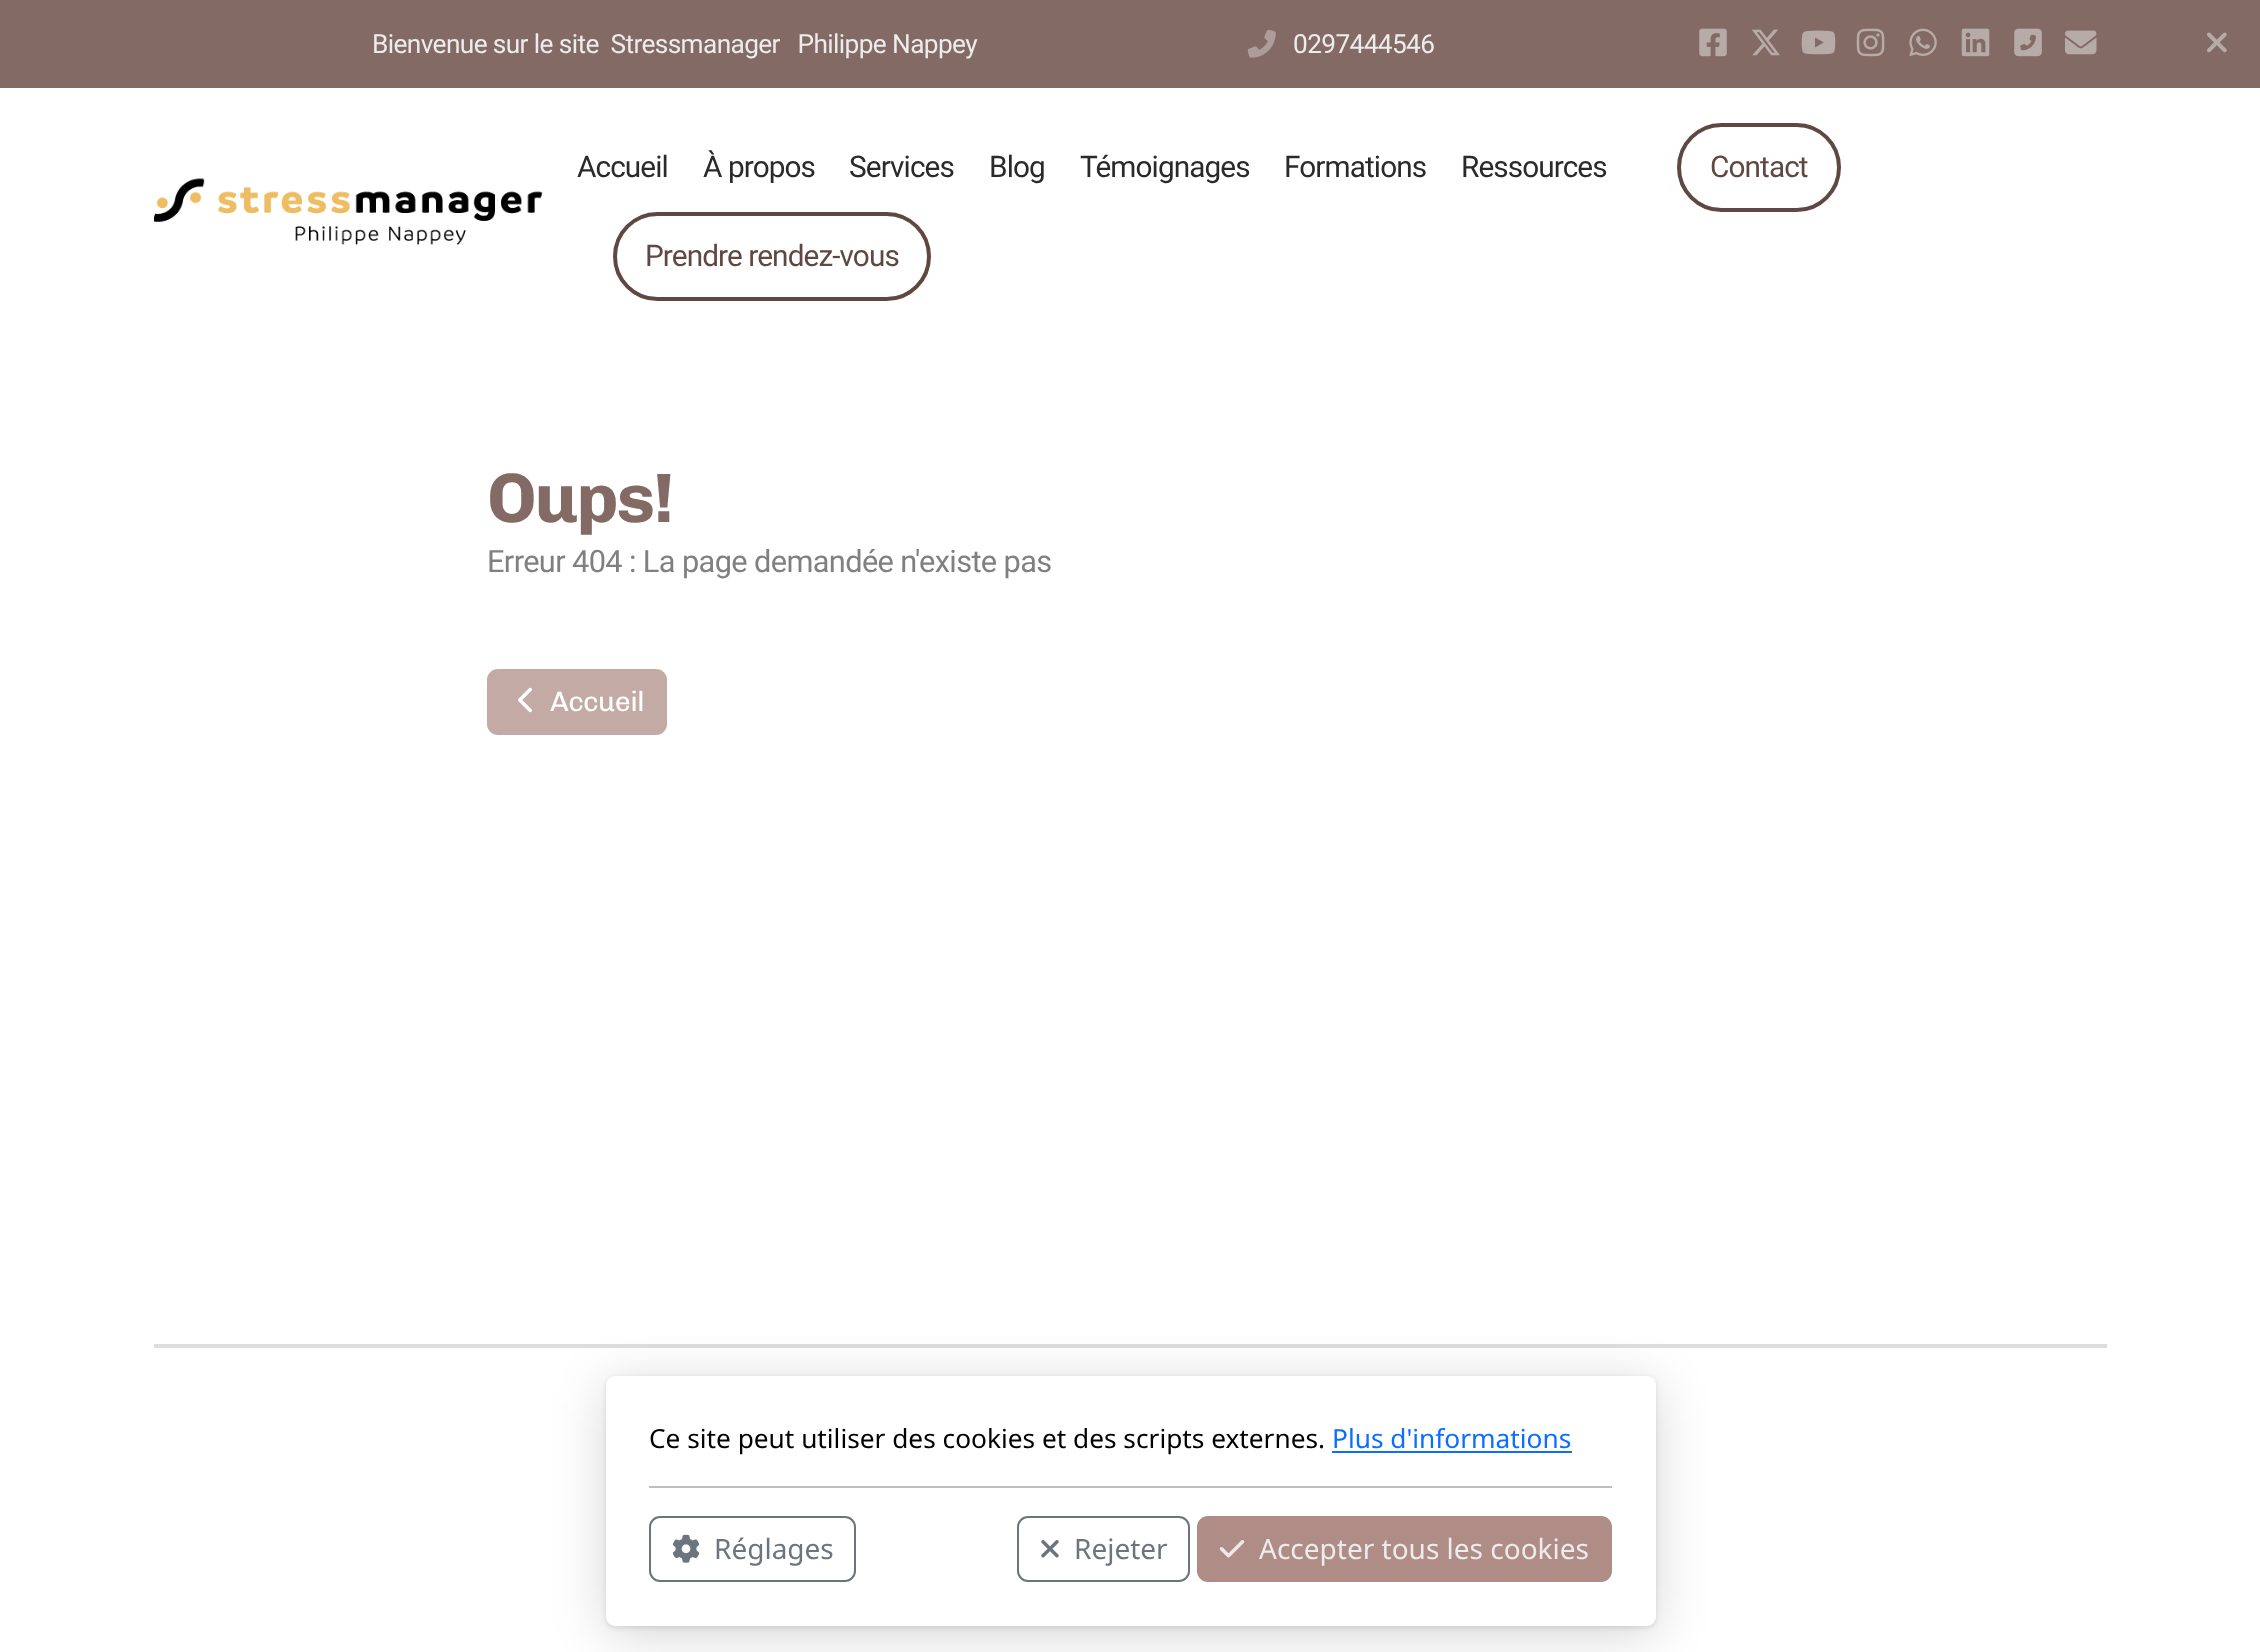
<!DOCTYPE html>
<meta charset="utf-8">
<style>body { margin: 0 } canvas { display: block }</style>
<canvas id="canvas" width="2260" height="1652"></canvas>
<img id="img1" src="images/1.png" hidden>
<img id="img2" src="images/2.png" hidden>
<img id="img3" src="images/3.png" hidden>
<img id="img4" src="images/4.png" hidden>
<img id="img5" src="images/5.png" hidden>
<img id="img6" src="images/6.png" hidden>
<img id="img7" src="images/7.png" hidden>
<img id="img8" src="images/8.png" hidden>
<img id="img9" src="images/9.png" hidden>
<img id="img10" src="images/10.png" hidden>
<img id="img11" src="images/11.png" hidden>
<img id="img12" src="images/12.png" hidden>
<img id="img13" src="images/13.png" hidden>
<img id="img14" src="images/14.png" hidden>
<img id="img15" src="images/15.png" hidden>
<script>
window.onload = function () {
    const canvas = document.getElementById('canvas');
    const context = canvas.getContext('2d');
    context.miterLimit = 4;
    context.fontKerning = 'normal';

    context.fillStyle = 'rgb(255, 255, 255)';
    context.fillRect(0, 0, 2260, 1652);
    context.fillStyle = 'rgb(131, 106, 101)';
    context.fillRect(0, 0, 2260, 88);
    context.drawImage(document.getElementById('img1'), 1247, 29, 29, 29);
    context.drawImage(document.getElementById('img2'), 1699, 28, 28, 29);
    context.drawImage(document.getElementById('img3'), 1751, 29, 29, 27);
    context.drawImage(document.getElementById('img4'), 1801, 30, 35, 25);
    context.drawImage(document.getElementById('img5'), 1856, 28, 29, 29);
    context.drawImage(document.getElementById('img6'), 1909, 28, 28, 29);
    context.drawImage(document.getElementById('img7'), 1961, 28, 29, 29);
    context.drawImage(document.getElementById('img8'), 2014, 28, 28, 29);
    context.drawImage(document.getElementById('img9'), 2065, 30, 32, 25);
    context.drawImage(document.getElementById('img10'), 2207, 32, 20, 21);
    context.drawImage(document.getElementById('img11'), 154, 178, 389, 67);
    context.beginPath();
    context.roundRect(1679, 125, 160, 85, 42.5);
    context.strokeStyle = 'rgb(95, 72, 66)';
    context.lineWidth = 4;
    context.stroke();
    context.beginPath();
    context.roundRect(615, 214, 314, 85, 42.5);
    context.stroke();
    context.fillStyle = 'rgb(195, 170, 164)';
    context.beginPath();
    context.roundRect(488, 670, 178, 64, 10);
    context.fill();
    context.strokeStyle = 'rgb(195, 170, 164)';
    context.lineWidth = 2;
    context.stroke();
    context.drawImage(document.getElementById('img12'), 518, 687, 14, 26);
    context.fillStyle = 'rgb(222, 222, 222)';
    context.fillRect(154, 1344, 1953, 4);
    context.fillStyle = 'rgba(0, 0, 0, 0.16)';
    context.filter = 'blur(26px)';
    context.beginPath();
    context.roundRect(606, 1384, 1050, 251, 9);
    context.fill();
    context.filter = 'none';
    context.fillStyle = 'rgba(0, 0, 0, 0.1)';
    context.filter = 'blur(2.5px)';
    context.beginPath();
    context.roundRect(606, 1377, 1050, 251, 9);
    context.fill();
    context.filter = 'none';
    context.fillStyle = 'rgb(255, 255, 255)';
    context.beginPath();
    context.roundRect(606, 1376, 1050, 250, 9);
    context.fill();
    context.fillStyle = 'rgb(13, 110, 253)';
    context.fillRect(1332, 1451, 240, 2);
    context.fillStyle = 'rgb(191, 191, 191)';
    context.fillRect(649, 1486, 963, 2);
    context.beginPath();
    context.roundRect(650, 1517, 205, 64, 10);
    context.strokeStyle = 'rgb(108, 117, 125)';
    context.stroke();
    context.drawImage(document.getElementById('img13'), 672, 1534, 28, 29);
    context.beginPath();
    context.roundRect(1018, 1517, 171, 64, 10);
    context.stroke();
    context.drawImage(document.getElementById('img14'), 1041, 1540, 18, 18);
    context.fillStyle = 'rgb(175, 141, 134)';
    context.beginPath();
    context.roundRect(1198, 1517, 413, 64, 10);
    context.fill();
    context.strokeStyle = 'rgb(175, 141, 134)';
    context.stroke();
    context.drawImage(document.getElementById('img15'), 1219, 1540, 26, 18);
    context.letterSpacing = '-0.62px';
    context.font = '26.25px Roboto';
    context.fillStyle = 'rgb(236, 236, 236)';
    context.fillText('Bienvenue sur le site  Stressmanager   Philippe Nappey', 372, 53);
    context.fillText('0297444546', 1293, 53);
    context.letterSpacing = '-0.9px';
    context.font = '29.75px Roboto';
    context.fillStyle = 'rgb(42, 42, 42)';
    context.fillText('Accueil', 577, 177);
    context.fillText('À propos', 703, 177);
    context.fillText('Services', 849, 177);
    context.fillText('Blog', 989, 177);
    context.fillText('Témoignages', 1080, 177);
    context.fillText('Formations', 1284, 177);
    context.fillText('Ressources', 1461, 177);
    context.fillStyle = 'rgb(95, 72, 66)';
    context.fillText('Contact', 1710, 177);
    context.fillText('Prendre rendez-vous', 645, 266);
    context.letterSpacing = '-2px';
    context.font = '500 70px Chivo';
    context.fillStyle = 'rgb(131, 106, 101)';
    context.fillText('Oups!', 487, 522);
    context.letterSpacing = '-0.62px';
    context.font = '30.75px Roboto';
    context.fillStyle = 'rgb(128, 128, 128)';
    context.fillText('Erreur 404 : La page demandée n\'existe pas', 487, 572);
    context.font = '500 28px "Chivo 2"';
    context.fillStyle = 'rgb(255, 255, 255)';
    context.fillText('Accueil', 550, 711);
    context.letterSpacing = '0px';
    context.font = '26.25px Noto Sans';
    context.fillStyle = 'rgb(0, 0, 0)';
    context.fillText('Ce site peut utiliser des cookies et des scripts externes.', 649, 1448);
    context.fillStyle = 'rgb(13, 110, 253)';
    context.fillText('Plus d\'informations', 1332, 1448);
    context.font = '28px Noto Sans';
    context.fillStyle = 'rgb(108, 117, 125)';
    context.fillText('Réglages', 714, 1559);
    context.fillText('Rejeter', 1074, 1559);
    context.fillStyle = 'rgb(236, 236, 236)';
    context.fillText('Accepter tous les cookies', 1259, 1559);
};
</script>
